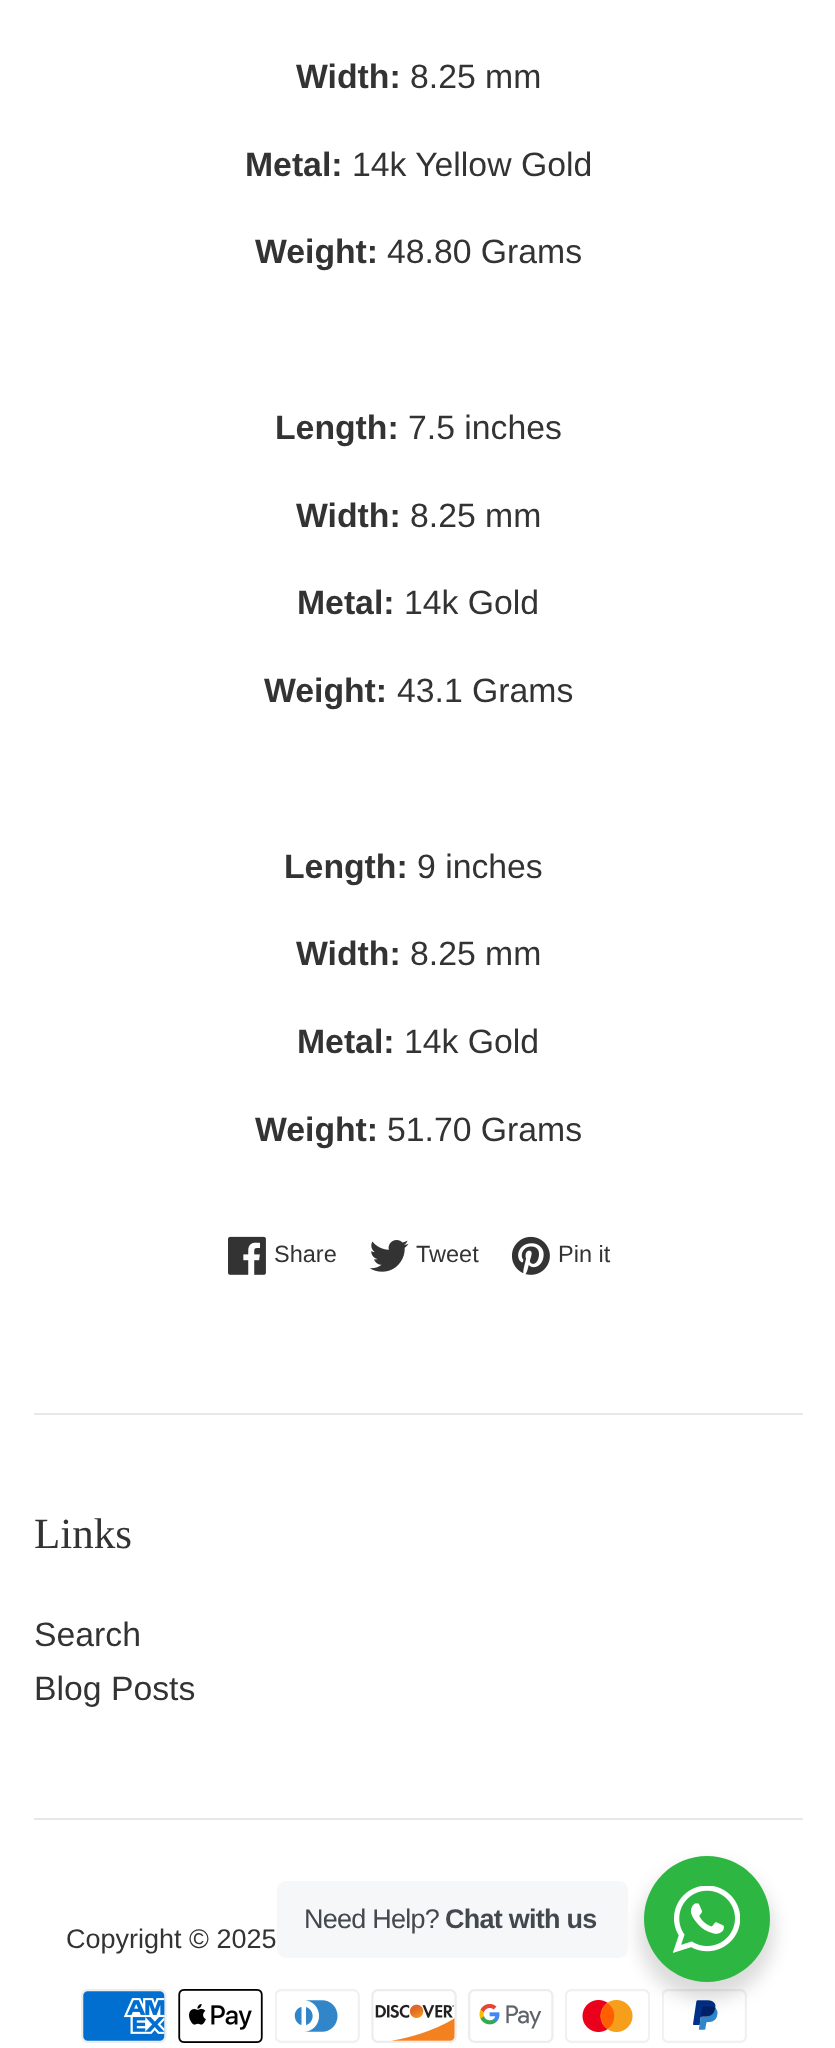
<!DOCTYPE html>
<meta charset="utf-8">
<style>body { margin: 0 } canvas { display: block }</style>
<canvas id="canvas" width="835" height="2048"></canvas>
<img id="img1" src="images/1.png" hidden>
<img id="img2" src="images/2.png" hidden>
<img id="img3" src="images/3.png" hidden>
<img id="img4" src="images/4.png" hidden>
<img id="img5" src="images/5.png" hidden>
<img id="img6" src="images/6.png" hidden>
<img id="img7" src="images/7.png" hidden>
<img id="img8" src="images/8.png" hidden>
<img id="img9" src="images/9.png" hidden>
<img id="img10" src="images/10.png" hidden>
<img id="img11" src="images/11.png" hidden>
<script>
window.onload = function () {
    const canvas = document.getElementById('canvas');
    const context = canvas.getContext('2d');
    context.miterLimit = 4;
    context.fontKerning = 'normal';

    context.fillStyle = 'rgb(255, 255, 255)';
    context.fillRect(0, 0, 835, 2048);
    context.drawImage(document.getElementById('img1'), 228, 1236, 38, 39);
    context.drawImage(document.getElementById('img2'), 369, 1240, 40, 32);
    context.drawImage(document.getElementById('img3'), 511, 1236, 39, 39);
    context.fillStyle = 'rgb(232, 232, 232)';
    context.fillRect(34, 1413, 769, 2);
    context.fillRect(34, 1818, 769, 2);
    context.drawImage(document.getElementById('img4'), 81, 1989, 86, 54);
    context.drawImage(document.getElementById('img5'), 178, 1989, 85, 54);
    context.drawImage(document.getElementById('img6'), 275, 1989, 85, 54);
    context.drawImage(document.getElementById('img7'), 371, 1989, 86, 54);
    context.drawImage(document.getElementById('img8'), 468, 1989, 86, 54);
    context.drawImage(document.getElementById('img9'), 565, 1989, 85, 54);
    context.drawImage(document.getElementById('img10'), 662, 1989, 85, 54);
    context.fillStyle = 'rgba(0, 0, 0, 0.14)';
    context.filter = 'blur(9px)';
    context.beginPath();
    context.roundRect(639, 1865, 135, 135, 67.5);
    context.fill();
    context.filter = 'none';
    context.fillStyle = 'rgb(245, 247, 249)';
    context.beginPath();
    context.roundRect(277, 1881, 351, 77, 9);
    context.fill();
    context.fillStyle = 'rgb(45, 183, 66)';
    context.beginPath();
    context.arc(707, 1919, 63, 0, 2 * Math.PI);
    context.fill();
    context.drawImage(document.getElementById('img11'), 673, 1886, 67, 67);
    context.font = 'bold 33.75px Liberation Sans';
    context.fillStyle = 'rgb(51, 51, 51)';
    context.fillText('Width:', 296, 88);
    context.font = '33.75px Liberation Sans';
    context.fillText('8.25 mm', 410, 88);
    context.font = 'bold 33.75px Liberation Sans';
    context.fillText('Metal:', 245, 176);
    context.font = '33.75px Liberation Sans';
    context.fillText('14k Yellow Gold', 352, 176);
    context.font = 'bold 33.75px Liberation Sans';
    context.fillText('Weight:', 255, 263);
    context.font = '33.75px Liberation Sans';
    context.fillText('48.80 Grams', 387, 263);
    context.font = 'bold 33.75px Liberation Sans';
    context.fillText('Length:', 275, 439);
    context.font = '33.75px Liberation Sans';
    context.fillText('7.5 inches', 408, 439);
    context.font = 'bold 33.75px Liberation Sans';
    context.fillText('Width:', 296, 527);
    context.font = '33.75px Liberation Sans';
    context.fillText('8.25 mm', 410, 527);
    context.font = 'bold 33.75px Liberation Sans';
    context.fillText('Metal:', 297, 614);
    context.font = '33.75px Liberation Sans';
    context.fillText('14k Gold', 404, 614);
    context.font = 'bold 33.75px Liberation Sans';
    context.fillText('Weight:', 264, 702);
    context.font = '33.75px Liberation Sans';
    context.fillText('43.1 Grams', 397, 702);
    context.font = 'bold 33.75px Liberation Sans';
    context.fillText('Length:', 284, 878);
    context.font = '33.75px Liberation Sans';
    context.fillText('9 inches', 417, 878);
    context.font = 'bold 33.75px Liberation Sans';
    context.fillText('Width:', 296, 965);
    context.font = '33.75px Liberation Sans';
    context.fillText('8.25 mm', 410, 965);
    context.font = 'bold 33.75px Liberation Sans';
    context.fillText('Metal:', 297, 1053);
    context.font = '33.75px Liberation Sans';
    context.fillText('14k Gold', 404, 1053);
    context.font = 'bold 33.75px Liberation Sans';
    context.fillText('Weight:', 255, 1141);
    context.font = '33.75px Liberation Sans';
    context.fillText('51.70 Grams', 387, 1141);
    context.font = '23.5px Liberation Sans';
    context.fillText('Share', 274, 1262);
    context.fillText('Tweet', 416, 1262);
    context.fillText('Pin it', 558, 1262);
    context.font = '43px Liberation Serif';
    context.fillText('Links', 34, 1548);
    context.font = '33.75px Liberation Sans';
    context.fillText('Search', 34, 1646);
    context.fillText('Blog Posts', 34, 1700);
    context.font = '27px Liberation Sans';
    context.fillText('Copyright © 2025', 66, 1948);
    context.letterSpacing = '-0.75px';
    context.fillStyle = 'rgb(67, 71, 78)';
    context.fillText('Need Help?', 304, 1928);
    context.font = 'bold 27px Liberation Sans';
    context.fillText('Chat with us', 445, 1928);
};
</script>
